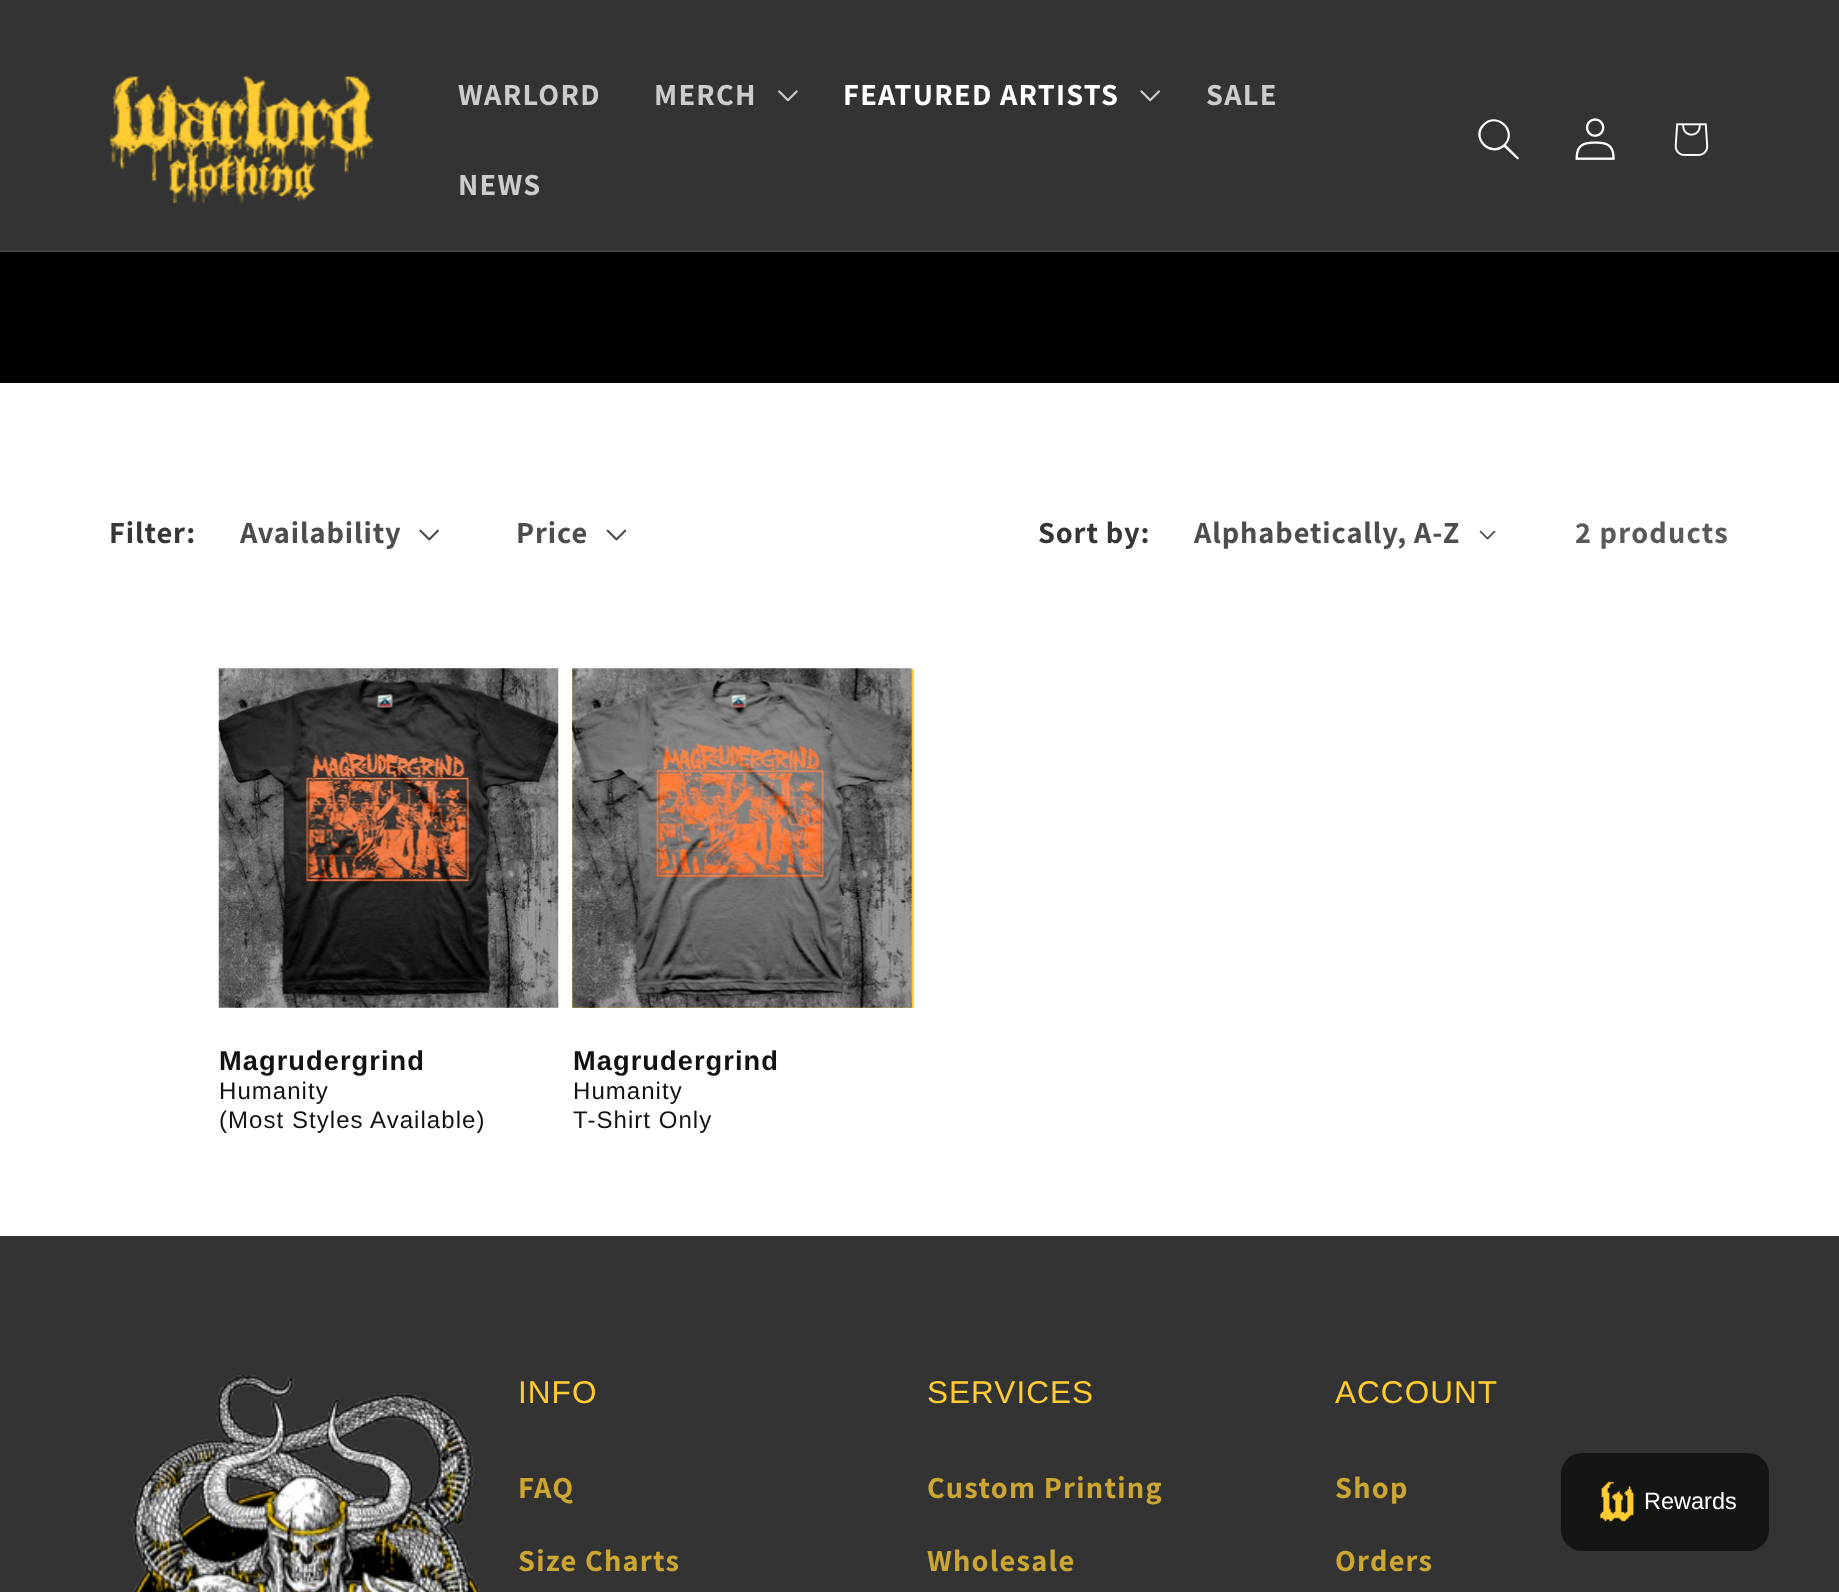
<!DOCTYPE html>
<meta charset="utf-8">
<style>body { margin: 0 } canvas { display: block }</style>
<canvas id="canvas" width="1839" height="1592"></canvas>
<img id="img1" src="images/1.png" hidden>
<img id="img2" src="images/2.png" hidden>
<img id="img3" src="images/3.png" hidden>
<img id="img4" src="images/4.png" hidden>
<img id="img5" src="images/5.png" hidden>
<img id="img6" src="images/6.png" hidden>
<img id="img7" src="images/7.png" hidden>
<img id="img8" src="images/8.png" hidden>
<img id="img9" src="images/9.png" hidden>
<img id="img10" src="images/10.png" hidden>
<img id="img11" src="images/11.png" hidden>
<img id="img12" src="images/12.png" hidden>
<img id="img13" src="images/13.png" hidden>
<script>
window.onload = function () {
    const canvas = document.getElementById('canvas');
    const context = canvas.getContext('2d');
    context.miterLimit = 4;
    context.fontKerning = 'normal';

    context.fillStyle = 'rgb(255, 255, 255)';
    context.fillRect(0, 0, 1839, 1592);
    context.fillStyle = 'rgb(51, 51, 51)';
    context.fillRect(0, 0, 1839, 250);
    context.fillStyle = 'rgb(67, 67, 67)';
    context.fillRect(0, 250, 1839, 2);
    context.drawImage(document.getElementById('img1'), 109, 76, 264, 127);
    context.drawImage(document.getElementById('img2'), 778, 90, 20, 12);
    context.drawImage(document.getElementById('img3'), 1140, 90, 20, 12);
    context.fillStyle = 'rgb(255, 255, 255)';
    context.beginPath();
    context.moveTo(1504, 144);
    context.bezierCurveTo(1491, 156, 1472, 138, 1485, 125);
    context.bezierCurveTo(1497, 113, 1516, 132, 1504, 144);
    context.moveTo(1504, 147);
    context.bezierCurveTo(1489, 159, 1469, 137, 1483, 124);
    context.bezierCurveTo(1497, 110, 1519, 130, 1506, 145);
    context.lineTo(1519, 158);
    context.bezierCurveTo(1519, 159, 1517, 160, 1517, 159);
    context.closePath();
    context.fill('evenodd');
    context.drawImage(document.getElementById('img4'), 1575, 118, 40, 42);
    context.drawImage(document.getElementById('img5'), 1674, 123, 35, 33);
    context.drawImage(document.getElementById('img6'), 0, 252, 1839, 131);
    context.drawImage(document.getElementById('img7'), 419, 529, 20, 12);
    context.drawImage(document.getElementById('img8'), 606, 529, 21, 12);
    context.drawImage(document.getElementById('img9'), 1479, 530, 17, 10);
    context.drawImage(document.getElementById('img10'), 218, 668, 341, 340);
    context.fillStyle = 'rgb(255, 204, 51)';
    context.fillRect(572, 669, 342, 339);
    context.drawImage(document.getElementById('img11'), 572, 668, 340, 340);
    context.fillStyle = 'rgb(51, 51, 51)';
    context.fillRect(0, 1236, 1839, 356);
    context.drawImage(document.getElementById('img12'), 131, 1375, 350, 217);
    context.fillStyle = 'rgb(20, 22, 20)';
    context.beginPath();
    context.roundRect(1561, 1453, 208, 98, 21);
    context.fill();
    context.drawImage(document.getElementById('img13'), 1600, 1481, 34, 41);
    context.letterSpacing = '1.25px';
    context.font = 'bold 30.6px Assistant';
    context.fillStyle = 'rgb(204, 204, 204)';
    context.fillText('WARLORD', 458, 105);
    context.fillText('MERCH', 654, 105);
    context.fillStyle = 'rgb(255, 255, 255)';
    context.fillText('FEATURED ARTISTS', 843, 105);
    context.fillStyle = 'rgb(204, 204, 204)';
    context.fillText('SALE', 1206, 105);
    context.fillText('NEWS', 458, 195);
    context.letterSpacing = '0.9px';
    context.fillStyle = 'rgb(54, 54, 54)';
    context.fillText('Filter:', 109, 543);
    context.fillStyle = 'rgb(77, 77, 77)';
    context.fillText('Availability', 240, 543);
    context.fillText('Price', 516, 543);
    context.fillStyle = 'rgb(54, 54, 54)';
    context.fillText('Sort by:', 1038, 543);
    context.fillStyle = 'rgb(77, 77, 77)';
    context.fillText('Alphabetically, A-Z', 1194, 543);
    context.letterSpacing = '1.25px';
    context.fillStyle = 'rgb(89, 89, 89)';
    context.fillText('2 products', 1575, 543);
    context.letterSpacing = '1.05px';
    context.font = 'bold 27.25px Liberation Sans';
    context.fillStyle = 'rgb(18, 18, 18)';
    context.fillText('Magrudergrind', 219, 1070);
    context.font = '24px Liberation Sans';
    context.fillText('Humanity', 219, 1099);
    context.fillText('(Most Styles Available)', 219, 1128);
    context.font = 'bold 27.25px Liberation Sans';
    context.fillText('Magrudergrind', 573, 1070);
    context.font = '24px Liberation Sans';
    context.fillText('Humanity', 573, 1099);
    context.fillText('T-Shirt Only', 573, 1128);
    context.font = '31.5px Liberation Sans';
    context.fillStyle = 'rgb(255, 204, 51)';
    context.fillText('INFO', 518, 1403);
    context.letterSpacing = '1.25px';
    context.font = 'bold 30.6px Assistant';
    context.fillStyle = 'rgb(204, 166, 51)';
    context.fillText('FAQ', 518, 1498);
    context.fillText('Size Charts', 518, 1571);
    context.letterSpacing = '1.05px';
    context.font = '31.5px Liberation Sans';
    context.fillStyle = 'rgb(255, 204, 51)';
    context.fillText('SERVICES', 927, 1403);
    context.letterSpacing = '1.25px';
    context.font = 'bold 30.6px Assistant';
    context.fillStyle = 'rgb(204, 166, 51)';
    context.fillText('Custom Printing', 927, 1498);
    context.fillText('Wholesale', 927, 1571);
    context.letterSpacing = '1.05px';
    context.font = '31.5px Liberation Sans';
    context.fillStyle = 'rgb(255, 204, 51)';
    context.fillText('ACCOUNT', 1335, 1403);
    context.letterSpacing = '1.25px';
    context.font = 'bold 30.6px Assistant';
    context.fillStyle = 'rgb(204, 166, 51)';
    context.fillText('Shop', 1335, 1498);
    context.fillText('Orders', 1335, 1571);
    context.letterSpacing = '0px';
    context.font = '23.5px Liberation Sans';
    context.fillStyle = 'rgb(255, 255, 255)';
    context.fillText('Rewards', 1644, 1509);
};
</script>
